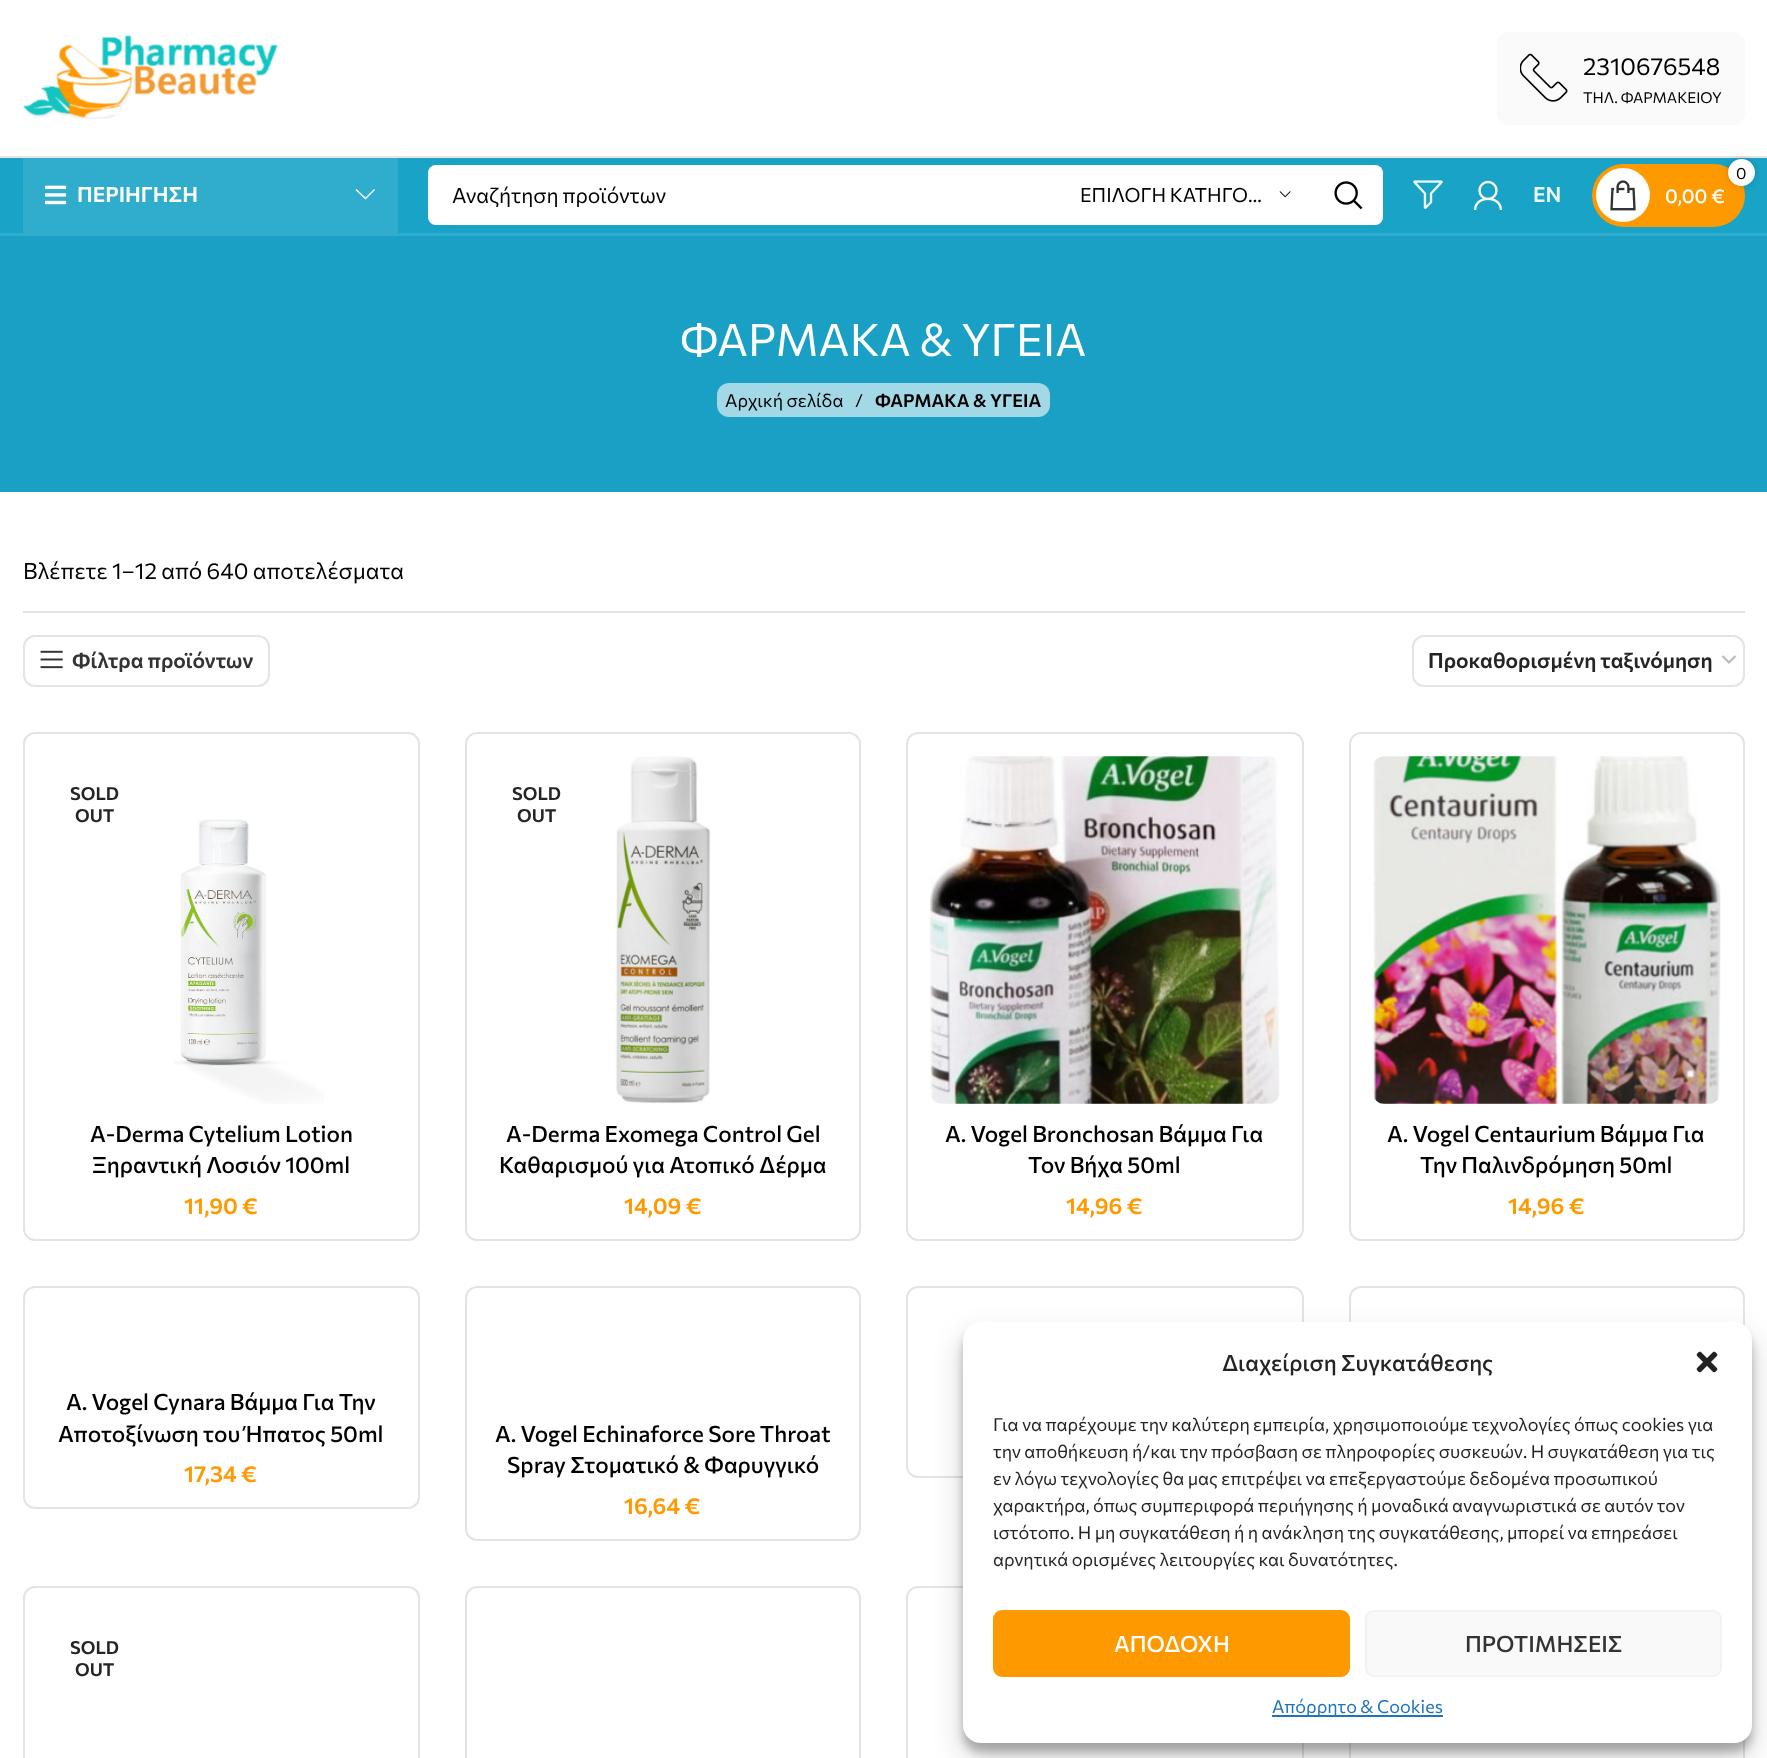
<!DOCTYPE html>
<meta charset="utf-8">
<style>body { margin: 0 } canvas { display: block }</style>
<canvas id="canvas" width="1767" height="1758"></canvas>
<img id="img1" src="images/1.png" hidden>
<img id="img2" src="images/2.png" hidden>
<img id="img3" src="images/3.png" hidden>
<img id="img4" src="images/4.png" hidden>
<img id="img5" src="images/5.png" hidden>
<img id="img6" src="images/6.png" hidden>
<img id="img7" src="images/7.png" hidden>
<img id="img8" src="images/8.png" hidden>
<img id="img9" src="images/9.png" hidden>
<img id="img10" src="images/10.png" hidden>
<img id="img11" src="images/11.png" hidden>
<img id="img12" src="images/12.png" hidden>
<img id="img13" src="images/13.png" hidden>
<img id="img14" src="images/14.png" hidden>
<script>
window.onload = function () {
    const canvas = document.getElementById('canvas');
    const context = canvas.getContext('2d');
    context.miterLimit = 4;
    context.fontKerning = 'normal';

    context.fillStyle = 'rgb(255, 255, 255)';
    context.fillRect(0, 0, 1767, 1758);
    context.fillStyle = 'rgb(230, 230, 230)';
    context.fillRect(0, 156, 1767, 2);
    context.drawImage(document.getElementById('img1'), 23, 35, 255, 84);
    context.fillStyle = 'rgb(250, 250, 250)';
    context.beginPath();
    context.roundRect(1497, 32, 248, 93, 12);
    context.fill();
    context.drawImage(document.getElementById('img2'), 1520, 53, 48, 49);
    context.fillStyle = 'rgb(25, 163, 199)';
    context.fillRect(0, 158, 1767, 75);
    context.fillStyle = 'rgb(48, 172, 205)';
    context.fillRect(0, 233, 1767, 3);
    context.fillRect(23, 158, 375, 75);
    context.drawImage(document.getElementById('img3'), 45, 185, 22, 20);
    context.fillStyle = 'rgb(255, 255, 255)';
    context.beginPath();
    context.moveTo(374, 189);
    context.lineTo(365.5, 197.5);
    context.lineTo(356.5, 189);
    context.lineTo(355.5, 190);
    context.lineTo(365.5, 199.5);
    context.lineTo(375, 190);
    context.closePath();
    context.fill();
    context.beginPath();
    context.roundRect(428, 165, 955, 60, 8);
    context.fill();
    context.beginPath();
    context.roundRect(429, 166, 953, 58, 7);
    context.strokeStyle = 'rgba(255, 255, 255, 0.2)';
    context.lineWidth = 2;
    context.stroke();
    context.drawImage(document.getElementById('img4'), 1279, 191, 12, 7);
    context.drawImage(document.getElementById('img5'), 1334, 181, 29, 29);
    context.drawImage(document.getElementById('img6'), 1413, 180, 30, 29);
    context.drawImage(document.getElementById('img7'), 1474, 180, 28, 30);
    context.fillStyle = 'rgb(255, 153, 0)';
    context.beginPath();
    context.roundRect(1592, 164, 153, 63, 31.5);
    context.fill();
    context.fillStyle = 'rgb(255, 255, 255)';
    context.beginPath();
    context.arc(1623, 195, 27, 0, 2 * Math.PI);
    context.fill();
    context.fillStyle = 'rgba(0, 0, 0, 0.17)';
    context.filter = 'blur(3px)';
    context.beginPath();
    context.roundRect(1728, 159, 27, 27, 13.5);
    context.fill();
    context.filter = 'none';
    context.fillStyle = 'rgb(255, 255, 255)';
    context.beginPath();
    context.arc(1741.5, 172.5, 13.5, 0, 2 * Math.PI);
    context.fill();
    context.drawImage(document.getElementById('img8'), 1610, 180, 26, 31);
    context.fillStyle = 'rgb(25, 160, 196)';
    context.fillRect(0, 236, 1767, 256);
    context.fillStyle = 'rgb(163, 217, 231)';
    context.beginPath();
    context.roundRect(717, 383, 333, 34, 12);
    context.fill();
    context.fillStyle = 'rgb(226, 226, 226)';
    context.fillRect(23, 611, 1722, 2);
    context.beginPath();
    context.roundRect(24, 636, 245, 50, 11);
    context.strokeStyle = 'rgb(228, 228, 228)';
    context.stroke();
    context.drawImage(document.getElementById('img9'), 40, 650, 23, 19);
    context.beginPath();
    context.moveTo(1722.5, 656);
    context.lineTo(1729, 662.5);
    context.lineTo(1735.5, 656);
    context.strokeStyle = 'rgb(187, 187, 187)';
    context.lineWidth = 2.2;
    context.stroke();
    context.beginPath();
    context.roundRect(1413, 636, 331, 50, 11);
    context.strokeStyle = 'rgb(228, 228, 228)';
    context.lineWidth = 2;
    context.stroke();
    context.beginPath();
    context.roundRect(24, 733, 395, 507, 11);
    context.stroke();
    context.drawImage(document.getElementById('img10'), 174, 819, 150, 285);
    context.beginPath();
    context.roundRect(466, 733, 394, 507, 11);
    context.stroke();
    context.drawImage(document.getElementById('img11'), 614, 756, 97, 348);
    context.beginPath();
    context.roundRect(907, 733, 396, 507, 11);
    context.stroke();
    context.drawImage(document.getElementById('img12'), 930, 756, 350, 348);
    context.beginPath();
    context.roundRect(1350, 733, 394, 507, 11);
    context.stroke();
    context.drawImage(document.getElementById('img13'), 1372, 756, 349, 348);
    context.beginPath();
    context.roundRect(24, 1287, 395, 221, 11);
    context.stroke();
    context.beginPath();
    context.roundRect(466, 1287, 394, 253, 11);
    context.stroke();
    context.beginPath();
    context.roundRect(907, 1287, 396, 190, 11);
    context.stroke();
    context.beginPath();
    context.roundRect(1350, 1287, 394, 221, 11);
    context.stroke();
    context.beginPath();
    context.roundRect(24, 1587, 395, 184, 11);
    context.stroke();
    context.beginPath();
    context.roundRect(466, 1587, 394, 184, 11);
    context.stroke();
    context.beginPath();
    context.roundRect(907, 1587, 396, 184, 11);
    context.stroke();
    context.strokeRect(1350, 1587, 394, 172);
    context.fillStyle = 'rgba(0, 0, 0, 0.23)';
    context.filter = 'blur(4.5px)';
    context.beginPath();
    context.roundRect(963, 1331, 789, 421, 18);
    context.fill();
    context.filter = 'none';
    context.fillStyle = 'rgba(0, 0, 0, 0.19)';
    context.filter = 'blur(15px)';
    context.beginPath();
    context.roundRect(963, 1337, 789, 421, 18);
    context.fill();
    context.filter = 'none';
    context.fillStyle = 'rgb(255, 255, 255)';
    context.beginPath();
    context.roundRect(963, 1322, 789, 421, 18);
    context.fill();
    context.drawImage(document.getElementById('img14'), 1696, 1351, 22, 22);
    context.fillStyle = 'rgb(255, 153, 0)';
    context.beginPath();
    context.roundRect(994, 1611, 355, 65, 8);
    context.fill();
    context.strokeStyle = 'rgb(255, 153, 0)';
    context.stroke();
    context.fillStyle = 'rgb(249, 249, 249)';
    context.beginPath();
    context.roundRect(1366, 1611, 355, 65, 8);
    context.fill();
    context.strokeStyle = 'rgb(242, 242, 242)';
    context.stroke();
    context.fillStyle = 'rgb(30, 115, 190)';
    context.fillRect(1272, 1715, 171, 2);
    context.font = '24px Commissioner';
    context.fillStyle = 'rgb(0, 0, 0)';
    context.fillText('2310676548', 1583, 75);
    context.font = '15px Commissioner';
    context.fillText('ΤΗΛ. ΦΑΡΜΑΚΕΙΟΥ', 1583, 103);
    context.font = '600 21px Commissioner';
    context.fillStyle = 'rgb(255, 255, 255)';
    context.fillText('ΠΕΡΙΗΓΗΣΗ', 77, 202);
    context.font = '21px Commissioner';
    context.fillStyle = 'rgb(0, 0, 0)';
    context.fillText('Αναζήτηση προϊόντων', 452, 203);
    context.font = '19.5px Commissioner';
    context.fillText('ΕΠΙΛΟΓΗ ΚΑΤΗΓΟ…', 1080, 202);
    context.font = '600 21px Commissioner';
    context.fillStyle = 'rgb(232, 246, 249)';
    context.fillText('EN', 1533, 202);
    context.font = '16px Commissioner';
    context.fillStyle = 'rgb(0, 0, 0)';
    context.fillText('0', 1736, 179);
    context.font = '500 19.5px Commissioner';
    context.fillStyle = 'rgb(255, 255, 255)';
    context.fillText('0,00 €', 1665, 203);
    context.font = '45px Commissioner';
    context.fillText('ΦΑΡΜΑΚΑ & ΥΓΕΙΑ', 680, 356);
    context.font = '18px Commissioner';
    context.fillStyle = 'rgb(0, 0, 0)';
    context.fillText('Αρχική σελίδα', 725, 407);
    context.fillText('/', 855, 407);
    context.font = '600 18px Commissioner';
    context.fillText('ΦΑΡΜΑΚΑ & ΥΓΕΙΑ', 875, 407);
    context.font = '22.5px Commissioner';
    context.fillText('Βλέπετε 1–12 από 640 αποτελέσματα', 23, 579);
    context.font = '600 21px Commissioner';
    context.fillStyle = 'rgb(51, 51, 51)';
    context.fillText('Φίλτρα προϊόντων', 72, 668);
    context.fillStyle = 'rgb(36, 36, 36)';
    context.fillText('Προκαθορισμένη ταξινόμηση', 1428, 668);
    context.font = '600 18px Commissioner';
    context.fillText('SOLD', 70, 800);
    context.fillText('OUT', 75, 822);
    context.font = '500 22.5px Commissioner';
    context.fillStyle = 'rgb(0, 0, 0)';
    context.fillText('A-Derma Cytelium Lotion', 90, 1142);
    context.fillText('Ξηραντική Λοσιόν 100ml', 92, 1173);
    context.font = '600 22.5px Commissioner';
    context.fillStyle = 'rgb(255, 153, 0)';
    context.fillText('11,90 €', 184, 1214);
    context.font = '600 18px Commissioner';
    context.fillStyle = 'rgb(36, 36, 36)';
    context.fillText('SOLD', 512, 800);
    context.fillText('OUT', 517, 822);
    context.font = '500 22.5px Commissioner';
    context.fillStyle = 'rgb(0, 0, 0)';
    context.fillText('A-Derma Exomega Control Gel', 506, 1142);
    context.fillText('Καθαρισμού για Ατοπικό Δέρμα', 499, 1173);
    context.font = '600 22.5px Commissioner';
    context.fillStyle = 'rgb(255, 153, 0)';
    context.fillText('14,09 €', 624, 1214);
    context.font = '500 22.5px Commissioner';
    context.fillStyle = 'rgb(0, 0, 0)';
    context.fillText('A. Vogel Bronchosan Βάμμα Για', 945, 1142);
    context.fillText('Τον Βήχα 50ml', 1028, 1173);
    context.font = '600 22.5px Commissioner';
    context.fillStyle = 'rgb(255, 153, 0)';
    context.fillText('14,96 €', 1066, 1214);
    context.font = '500 22.5px Commissioner';
    context.fillStyle = 'rgb(0, 0, 0)';
    context.fillText('A. Vogel Centaurium Βάμμα Για', 1387, 1142);
    context.fillText('Την Παλινδρόμηση 50ml', 1420, 1173);
    context.font = '600 22.5px Commissioner';
    context.fillStyle = 'rgb(255, 153, 0)';
    context.fillText('14,96 €', 1508, 1214);
    context.font = '500 22.5px Commissioner';
    context.fillStyle = 'rgb(0, 0, 0)';
    context.fillText('A. Vogel Cynara Βάμμα Για Την', 66, 1410);
    context.fillText('Αποτοξίνωση του Ήπατος 50ml', 58, 1442);
    context.font = '600 22.5px Commissioner';
    context.fillStyle = 'rgb(255, 153, 0)';
    context.fillText('17,34 €', 184, 1482);
    context.font = '500 22.5px Commissioner';
    context.fillStyle = 'rgb(0, 0, 0)';
    context.fillText('A. Vogel Echinaforce Sore Throat', 495, 1442);
    context.fillText('Spray Στοματικό & Φαρυγγικό', 507, 1473);
    context.font = '600 22.5px Commissioner';
    context.fillStyle = 'rgb(255, 153, 0)';
    context.fillText('16,64 €', 624, 1514);
    context.font = '600 18px Commissioner';
    context.fillStyle = 'rgb(36, 36, 36)';
    context.fillText('SOLD', 70, 1654);
    context.fillText('OUT', 75, 1676);
    context.font = '500 22.5px Commissioner';
    context.fillText('Διαχείριση Συγκατάθεσης', 1222, 1371);
    context.font = '18px Commissioner';
    context.fillText('Για να παρέχουμε την καλύτερη εμπειρία, χρησιμοποιούμε τεχνολογίες όπως cookies για', 993, 1431);
    context.fillText('την αποθήκευση ή/και την πρόσβαση σε πληροφορίες συσκευών. Η συγκατάθεση για τις', 993, 1458);
    context.fillText('εν λόγω τεχνολογίες θα μας επιτρέψει να επεξεργαστούμε δεδομένα προσωπικού', 993, 1485);
    context.fillText('χαρακτήρα, όπως συμπεριφορά περιήγησης ή μοναδικά αναγνωριστικά σε αυτόν τον', 993, 1512);
    context.fillText('ιστότοπο. Η μη συγκατάθεση ή η ανάκληση της συγκατάθεσης, μπορεί να επηρεάσει', 993, 1539);
    context.fillText('αρνητικά ορισμένες λειτουργίες και δυνατότητες.', 993, 1566);
    context.font = '500 22.5px Commissioner';
    context.fillStyle = 'rgb(255, 255, 255)';
    context.fillText('ΑΠΟΔΟΧΗ', 1114, 1652);
    context.fillStyle = 'rgb(51, 51, 51)';
    context.fillText('ΠΡΟΤΙΜΗΣΕΙΣ', 1465, 1652);
    context.font = '18px Commissioner';
    context.fillStyle = 'rgb(30, 115, 190)';
    context.fillText('Απόρρητο & Cookies', 1272, 1713);
};
</script>
